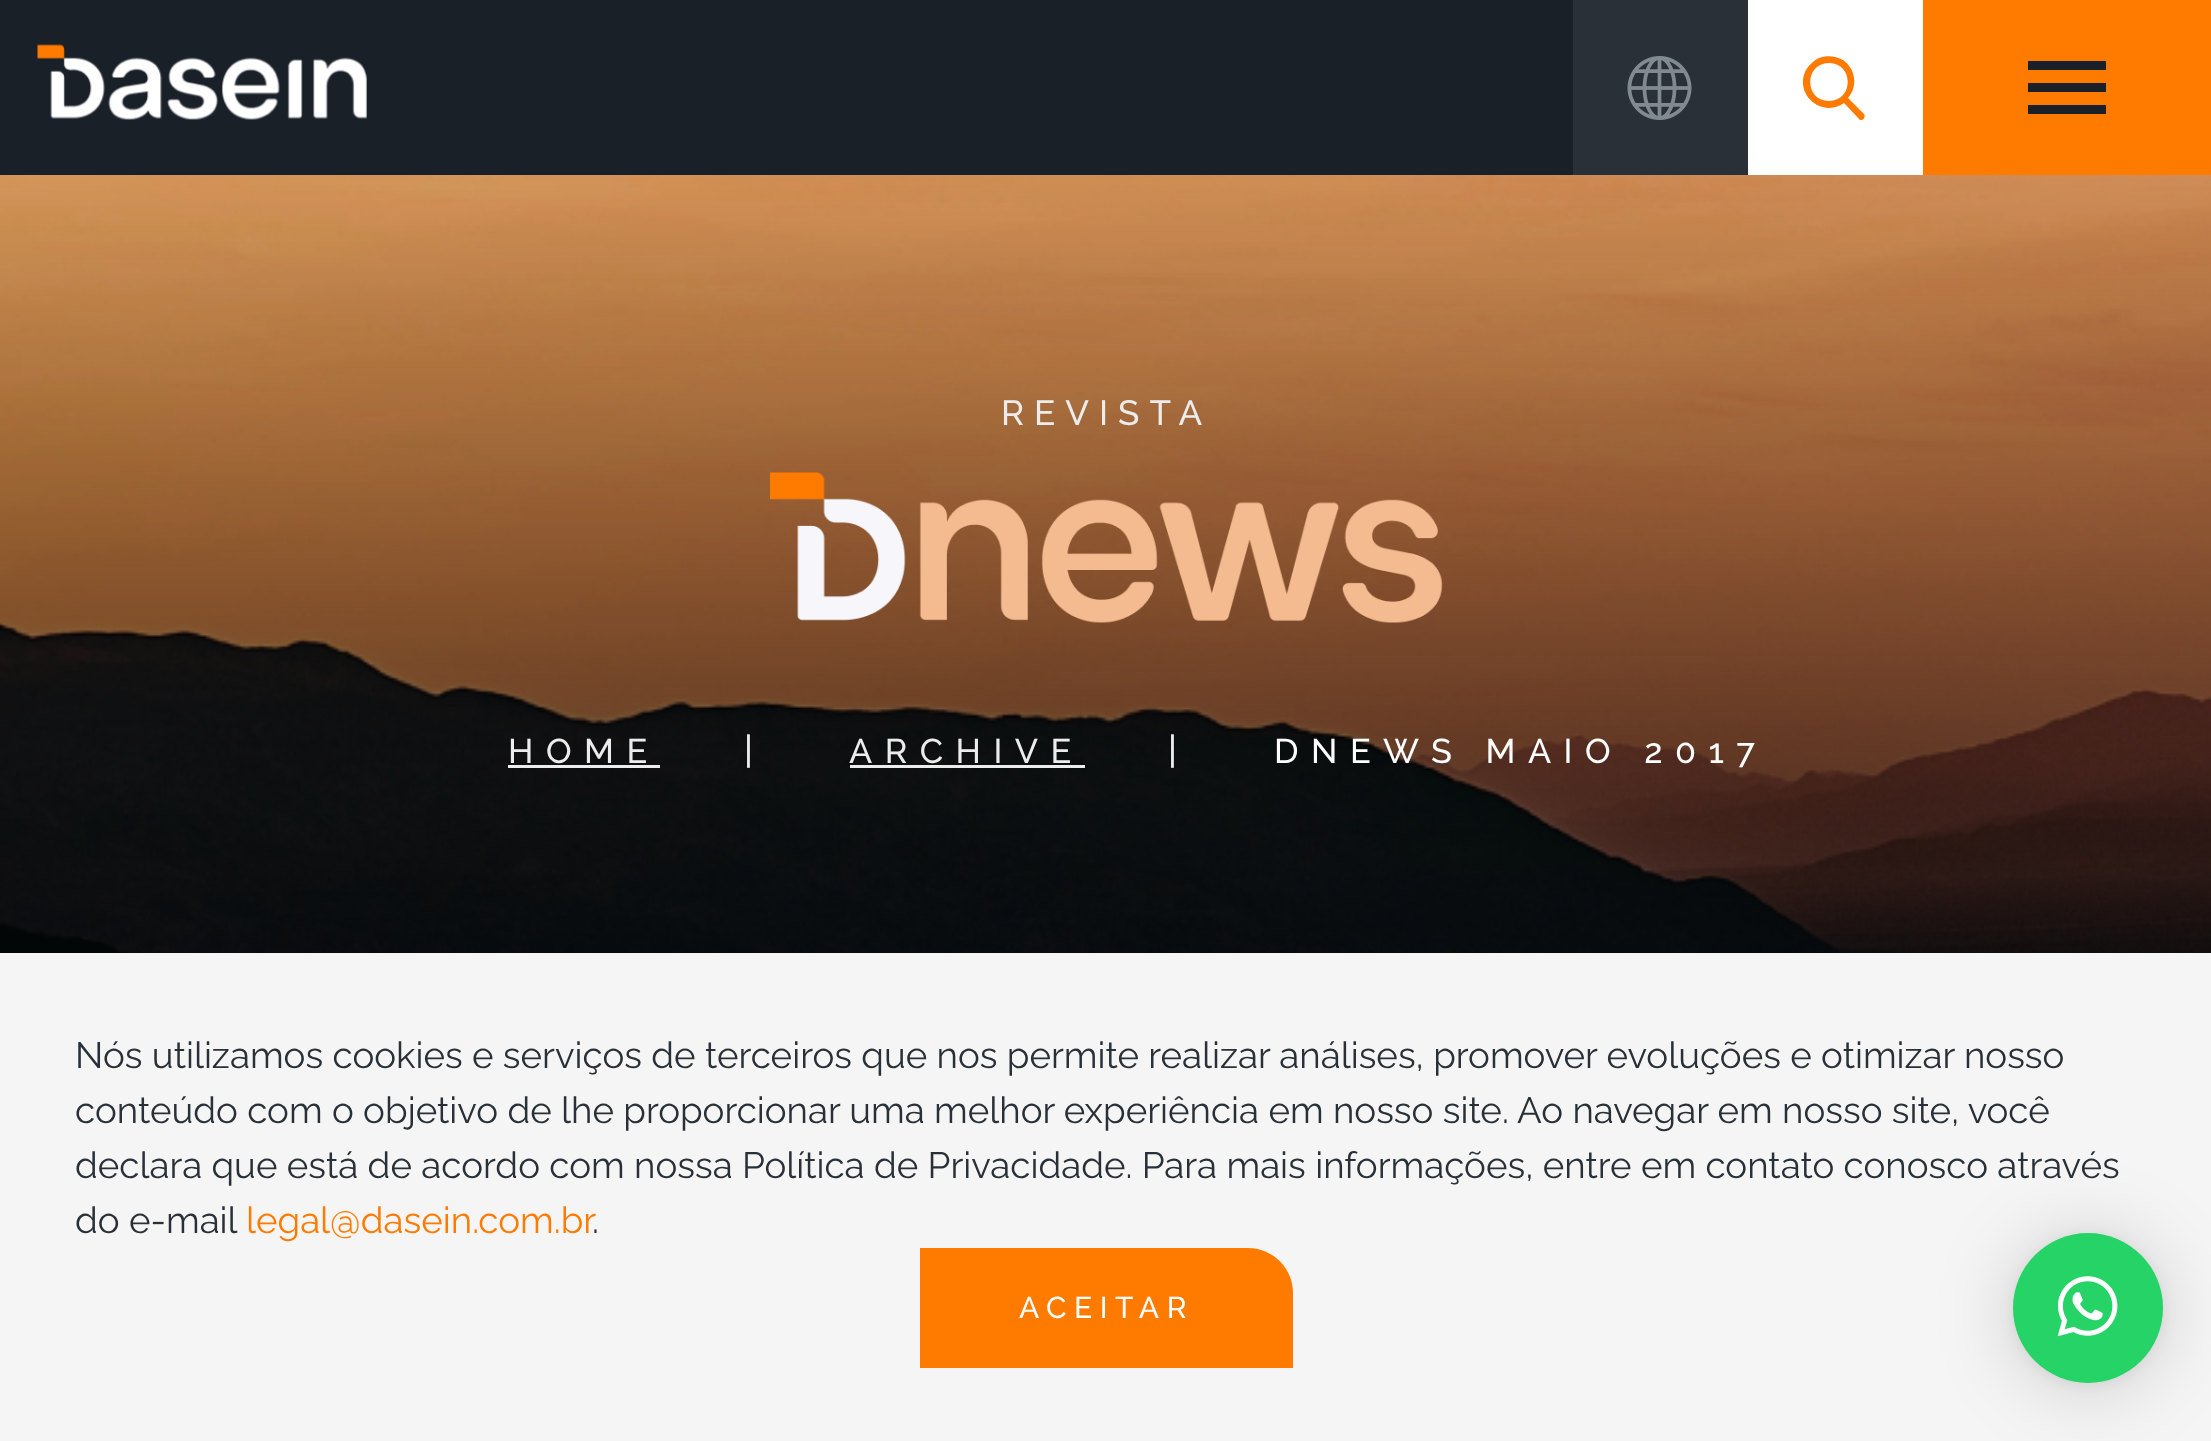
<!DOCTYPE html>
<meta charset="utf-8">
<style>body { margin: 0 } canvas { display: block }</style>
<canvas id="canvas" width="2211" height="1441"></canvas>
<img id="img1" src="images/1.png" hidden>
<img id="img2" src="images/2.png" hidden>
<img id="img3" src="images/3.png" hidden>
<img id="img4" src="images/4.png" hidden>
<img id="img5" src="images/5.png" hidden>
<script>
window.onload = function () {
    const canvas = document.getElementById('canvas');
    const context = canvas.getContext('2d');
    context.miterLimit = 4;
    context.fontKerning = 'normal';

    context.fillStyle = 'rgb(255, 255, 255)';
    context.fillRect(0, 0, 2211, 1441);
    context.fillStyle = 'rgb(25, 32, 40)';
    context.fillRect(0, 0, 1573, 175);
    context.drawImage(document.getElementById('img1'), 37, 44, 330, 76);
    context.fillStyle = 'rgb(41, 48, 55)';
    context.fillRect(1573, 0, 175, 175);
    context.drawImage(document.getElementById('img2'), 1627, 56, 65, 64);
    context.fillStyle = 'rgb(255, 123, 0)';
    context.beginPath();
    context.moveTo(1864, 114);
    context.bezierCurveTo(1866, 117, 1863, 121, 1860, 120);
    context.lineTo(1844, 103);
    context.bezierCurveTo(1823, 118, 1795, 96, 1805, 72);
    context.bezierCurveTo(1808, 66, 1813, 61, 1819, 58);
    context.bezierCurveTo(1827, 55, 1836, 56, 1843, 60);
    context.bezierCurveTo(1856, 69, 1858, 87, 1848, 98);
    context.closePath();
    context.moveTo(1829, 63);
    context.bezierCurveTo(1804, 63, 1804, 101, 1829, 101);
    context.bezierCurveTo(1854, 101, 1854, 63, 1829, 63);
    context.closePath();
    context.fill();
    context.fillRect(1923, 0, 288, 175);
    context.fillStyle = 'rgb(25, 32, 40)';
    context.beginPath();
    context.moveTo(2106, 105);
    context.lineTo(2106, 114);
    context.lineTo(2028, 114);
    context.lineTo(2028, 105);
    context.closePath();
    context.moveTo(2106, 83);
    context.lineTo(2106, 92);
    context.lineTo(2028, 92);
    context.lineTo(2028, 83);
    context.closePath();
    context.moveTo(2106, 61);
    context.lineTo(2106, 70);
    context.lineTo(2028, 70);
    context.lineTo(2028, 61);
    context.closePath();
    context.fill();
    context.drawImage(document.getElementById('img3'), 0, 175, 2211, 778);
    context.drawImage(document.getElementById('img4'), 770, 472, 673, 151);
    context.fillStyle = 'rgb(236, 236, 236)';
    context.fillRect(508, 765, 152, 3);
    context.fillRect(850, 765, 235, 3);
    context.fillStyle = 'rgb(245, 245, 245)';
    context.fillRect(0, 953, 2211, 488);
    context.fillStyle = 'rgb(255, 123, 0)';
    context.beginPath();
    context.roundRect(920, 1248, 373, 120, [0, 45, 0, 0]);
    context.fill();
    context.fillStyle = 'rgba(0, 0, 0, 0.16)';
    context.filter = 'blur(40px)';
    context.beginPath();
    context.roundRect(2013, 1238, 150, 150, 75);
    context.fill();
    context.filter = 'none';
    context.fillStyle = 'rgba(0, 0, 0, 0.06)';
    context.filter = 'blur(7.5px)';
    context.beginPath();
    context.roundRect(2013, 1235, 150, 150, 75);
    context.fill();
    context.filter = 'none';
    context.fillStyle = 'rgb(37, 211, 102)';
    context.beginPath();
    context.arc(2088, 1308, 75, 0, 2 * Math.PI);
    context.fill();
    context.drawImage(document.getElementById('img5'), 2057, 1276, 61, 61);
    context.letterSpacing = '10px';
    context.font = '500 35px Raleway';
    context.fillStyle = 'rgb(236, 236, 236)';
    context.fillText('REVISTA', 1001, 425);
    context.letterSpacing = '12.5px';
    context.font = '500 34.25px Raleway';
    context.fillText('HOME', 508, 763);
    context.font = '500 37px Raleway';
    context.fillText('|', 744, 763);
    context.font = '500 34.25px Raleway';
    context.fillText('ARCHIVE', 849, 763);
    context.font = '500 37px Raleway';
    context.fillText('|', 1168, 763);
    context.font = '500 34.25px Raleway';
    context.fillStyle = 'rgb(255, 255, 255)';
    context.fillText('DNEWS MAIO 2017', 1274, 763);
    context.letterSpacing = '0px';
    context.font = '36.67px Raleway';
    context.fillStyle = 'rgb(41, 48, 55)';
    context.fillText('Nós utilizamos cookies e serviços de terceiros que nos permite realizar análises, promover evoluções e otimizar nosso', 75, 1068);
    context.fillText('conteúdo com o objetivo de lhe proporcionar uma melhor experiência em nosso site. Ao navegar em nosso site, você', 75, 1123);
    context.fillText('declara que está de acordo com nossa Política de Privacidade. Para mais informações, entre em contato conosco através', 75, 1178);
    context.fillText('do e-mail', 75, 1233);
    context.fillStyle = 'rgb(255, 123, 0)';
    context.fillText('legal@dasein.com.br', 246, 1233);
    context.fillStyle = 'rgb(41, 48, 55)';
    context.fillText('.', 592, 1233);
    context.letterSpacing = '7.5px';
    context.font = '500 30px Raleway';
    context.fillStyle = 'rgb(255, 255, 255)';
    context.fillText('ACEITAR', 1019, 1318);
};
</script>
